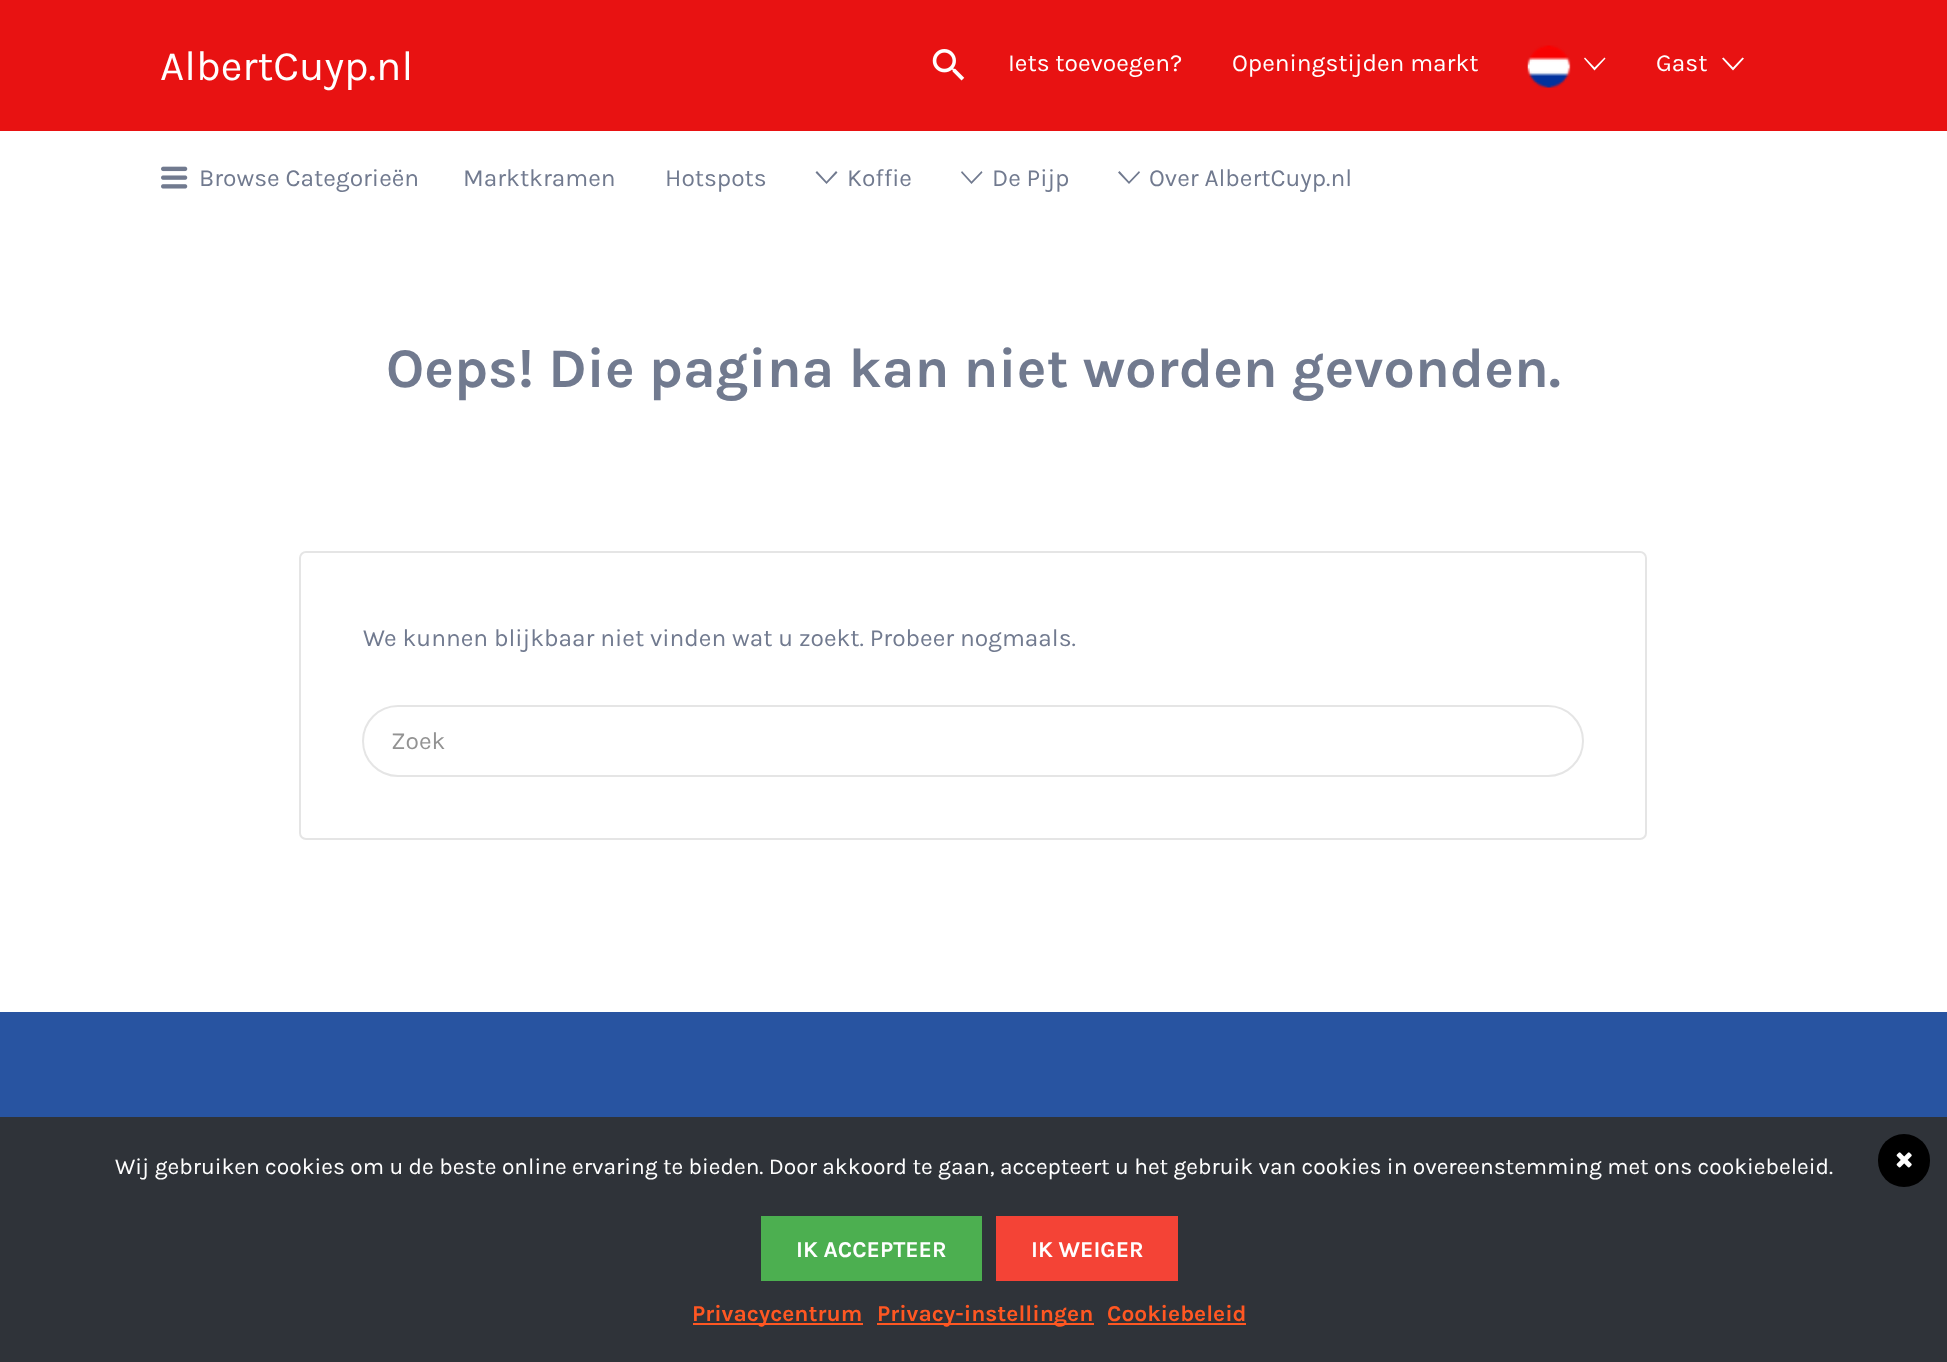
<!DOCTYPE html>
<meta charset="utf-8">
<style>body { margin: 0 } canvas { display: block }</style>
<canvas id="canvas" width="1947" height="1362"></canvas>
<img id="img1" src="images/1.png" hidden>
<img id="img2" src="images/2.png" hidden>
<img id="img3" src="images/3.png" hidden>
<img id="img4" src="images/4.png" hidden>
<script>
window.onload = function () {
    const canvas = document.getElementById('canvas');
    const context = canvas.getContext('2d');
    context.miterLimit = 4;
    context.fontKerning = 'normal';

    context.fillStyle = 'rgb(255, 255, 255)';
    context.fillRect(0, 0, 1947, 1362);
    context.fillStyle = 'rgb(232, 18, 18)';
    context.fillRect(0, 0, 1947, 131);
    context.drawImage(document.getElementById('img1'), 932, 49, 33, 32);
    context.drawImage(document.getElementById('img2'), 1527, 45, 44, 43);
    context.fillStyle = 'rgb(255, 255, 255)';
    context.beginPath();
    context.moveTo(1604.5, 57.5);
    context.lineTo(1605.5, 58.5);
    context.lineTo(1594.5, 70.5);
    context.lineTo(1584, 58.5);
    context.lineTo(1585, 57.5);
    context.lineTo(1594.5, 67.5);
    context.closePath();
    context.fill();
    context.beginPath();
    context.moveTo(1742.5, 57.5);
    context.lineTo(1744, 58.5);
    context.lineTo(1733, 70.5);
    context.lineTo(1722, 58.5);
    context.lineTo(1723.5, 57.5);
    context.lineTo(1733, 67.5);
    context.closePath();
    context.fill();
    context.drawImage(document.getElementById('img3'), 161, 166, 27, 23);
    context.fillStyle = 'rgb(113, 122, 143)';
    context.beginPath();
    context.moveTo(836, 171);
    context.lineTo(837.5, 172.5);
    context.lineTo(826.5, 184);
    context.lineTo(815.5, 172.5);
    context.lineTo(817, 171);
    context.lineTo(826.5, 181.5);
    context.closePath();
    context.fill();
    context.beginPath();
    context.moveTo(981.5, 171);
    context.lineTo(982.5, 172.5);
    context.lineTo(971.5, 184);
    context.lineTo(961, 172.5);
    context.lineTo(962, 171);
    context.lineTo(971.5, 181.5);
    context.closePath();
    context.fill();
    context.beginPath();
    context.moveTo(1139, 171);
    context.lineTo(1140, 172.5);
    context.lineTo(1129, 184);
    context.lineTo(1118, 172.5);
    context.lineTo(1119.5, 171);
    context.lineTo(1129, 181.5);
    context.closePath();
    context.fill();
    context.beginPath();
    context.roundRect(300, 552, 1346, 287, 6);
    context.strokeStyle = 'rgb(229, 229, 229)';
    context.lineWidth = 2;
    context.stroke();
    context.beginPath();
    context.roundRect(363, 706, 1220, 70, 35);
    context.stroke();
    context.fillStyle = 'rgb(40, 84, 161)';
    context.fillRect(0, 1012, 1947, 105);
    context.fillStyle = 'rgb(47, 51, 57)';
    context.fillRect(0, 1117, 1947, 245);
    context.fillStyle = 'rgb(0, 0, 0)';
    context.beginPath();
    context.roundRect(1878, 1134, 52, 53, 26);
    context.fill();
    context.drawImage(document.getElementById('img4'), 1896, 1152, 16, 16);
    context.fillStyle = 'rgb(76, 175, 80)';
    context.fillRect(761, 1216, 221, 65);
    context.fillStyle = 'rgb(244, 67, 54)';
    context.fillRect(996, 1216, 182, 65);
    context.fillStyle = 'rgb(255, 87, 34)';
    context.fillRect(693, 1323, 170, 2);
    context.fillRect(877, 1323, 217, 2);
    context.fillRect(1108, 1323, 138, 2);
    context.font = '42px Karla';
    context.fillStyle = 'rgb(255, 255, 255)';
    context.fillText('AlbertCuyp.nl', 160, 80);
    context.font = '24.5px Karla';
    context.fillText('Iets toevoegen?', 1008, 71);
    context.fillText('Openingstijden markt', 1232, 71);
    context.fillText('Gast', 1656, 71);
    context.fillStyle = 'rgb(113, 122, 143)';
    context.fillText('Browse Categorieën', 199, 186);
    context.fillText('Marktkramen', 463, 186);
    context.fillText('Hotspots', 665, 186);
    context.fillText('Koffie', 847, 186);
    context.fillText('De Pijp', 992, 186);
    context.fillText('Over AlbertCuyp.nl', 1149, 186);
    context.font = 'bold 56px Karla';
    context.fillText('Oeps! Die pagina kan niet worden gevonden.', 386, 387);
    context.font = '24.5px Karla';
    context.fillText('We kunnen blijkbaar niet vinden wat u zoekt. Probeer nogmaals.', 363, 646);
    context.fillStyle = 'rgb(147, 147, 147)';
    context.fillText('Zoek', 391, 749);
    context.font = '22.75px Karla';
    context.fillStyle = 'rgb(255, 255, 255)';
    context.fillText('Wij gebruiken cookies om u de beste online ervaring te bieden. Door akkoord te gaan, accepteert u het gebruik van cookies in overeenstemming met ons cookiebeleid.', 115, 1174);
    context.font = 'bold 22.75px Karla';
    context.fillText('IK ACCEPTEER', 796, 1257);
    context.fillText('IK WEIGER', 1031, 1257);
    context.fillStyle = 'rgb(255, 87, 34)';
    context.fillText('Privacycentrum', 692, 1321);
    context.fillText('Privacy-instellingen', 877, 1321);
    context.fillText('Cookiebeleid', 1107, 1321);
};
</script>
